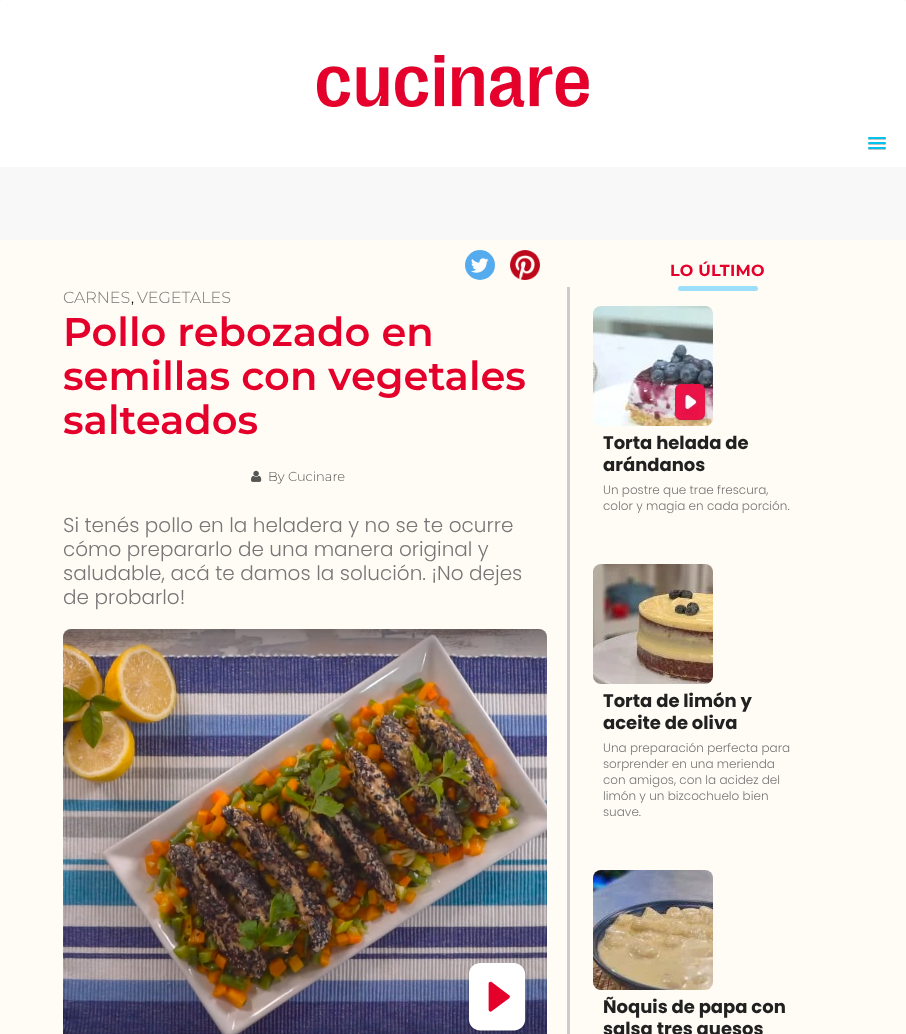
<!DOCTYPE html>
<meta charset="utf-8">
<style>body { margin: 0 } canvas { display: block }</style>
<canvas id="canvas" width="906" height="1034"></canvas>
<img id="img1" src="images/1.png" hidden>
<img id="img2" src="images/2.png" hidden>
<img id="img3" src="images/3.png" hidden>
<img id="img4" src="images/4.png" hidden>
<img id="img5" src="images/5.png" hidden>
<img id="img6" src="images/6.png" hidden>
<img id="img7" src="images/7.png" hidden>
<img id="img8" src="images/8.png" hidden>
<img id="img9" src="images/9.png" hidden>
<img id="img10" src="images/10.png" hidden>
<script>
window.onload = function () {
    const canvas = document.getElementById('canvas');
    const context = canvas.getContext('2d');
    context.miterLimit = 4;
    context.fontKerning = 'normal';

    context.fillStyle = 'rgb(248, 248, 248)';
    context.fillRect(0, 0, 906, 1034);
    context.fillStyle = 'rgb(255, 255, 255)';
    context.beginPath();
    context.roundRect(0, 0, 906, 120, [3, 3, 0, 0]);
    context.fill();
    context.drawImage(document.getElementById('img1'), 317, 55, 272, 52);
    context.fillRect(0, 120, 906, 47);
    context.fillStyle = 'rgb(191, 191, 191)';
    context.beginPath();
    context.moveTo(868, 138.5);
    context.bezierCurveTo(867, 140.5, 871.5, 140, 871.5, 140);
    context.lineTo(882.5, 140);
    context.bezierCurveTo(882.5, 140, 887, 140.5, 886, 138.5);
    context.bezierCurveTo(885, 139.5, 878.5, 139, 877, 139);
    context.bezierCurveTo(875.5, 139, 869, 139.5, 868, 138.5);
    context.closePath();
    context.fill();
    context.fillStyle = 'rgb(0, 194, 237)';
    context.beginPath();
    context.roundRect(868, 137, 18, 2, 1);
    context.fill();
    context.fillStyle = 'rgb(191, 191, 191)';
    context.beginPath();
    context.moveTo(868, 143.5);
    context.bezierCurveTo(867, 145.5, 871.5, 145, 871.5, 145);
    context.lineTo(882.5, 145);
    context.bezierCurveTo(882.5, 145, 887, 145.5, 886, 143.5);
    context.bezierCurveTo(885, 144.5, 878.5, 144, 877, 144);
    context.bezierCurveTo(875.5, 144, 869, 144.5, 868, 143.5);
    context.closePath();
    context.fill();
    context.fillStyle = 'rgb(0, 194, 237)';
    context.beginPath();
    context.roundRect(868, 142, 18, 2, 1);
    context.fill();
    context.fillStyle = 'rgb(191, 191, 191)';
    context.beginPath();
    context.moveTo(868, 148.5);
    context.bezierCurveTo(867, 150.5, 871.5, 150, 871.5, 150);
    context.lineTo(882.5, 150);
    context.bezierCurveTo(882.5, 150, 887, 150.5, 886, 148.5);
    context.bezierCurveTo(885, 149.5, 878.5, 149, 877, 149);
    context.bezierCurveTo(875.5, 149, 869, 149.5, 868, 148.5);
    context.closePath();
    context.fill();
    context.fillStyle = 'rgb(0, 194, 237)';
    context.beginPath();
    context.roundRect(868, 147, 18, 2, 1);
    context.fill();
    context.fillStyle = 'rgb(255, 252, 245)';
    context.fillRect(0, 240, 906, 794);
    context.fillStyle = 'rgb(84, 172, 238)';
    context.beginPath();
    context.arc(480, 265, 15, 0, 2 * Math.PI);
    context.fill();
    context.drawImage(document.getElementById('img2'), 471, 258, 18, 15);
    context.drawImage(document.getElementById('img3'), 510, 250, 30, 30);
    context.fillStyle = 'rgb(204, 204, 204)';
    context.fillRect(567, 287, 3, 747);
    context.drawImage(document.getElementById('img4'), 251, 470, 11, 12);
    context.drawImage(document.getElementById('img5'), 63, 629, 484, 405);
    context.drawImage(document.getElementById('img6'), 468, 963, 60, 70);
    context.fillStyle = 'rgb(157, 223, 250)';
    context.beginPath();
    context.roundRect(678, 286, 80, 5, 2.5);
    context.fill();
    context.drawImage(document.getElementById('img7'), 593, 306, 120, 120);
    context.drawImage(document.getElementById('img8'), 675, 384, 32, 38);
    context.drawImage(document.getElementById('img9'), 593, 564, 120, 120);
    context.drawImage(document.getElementById('img10'), 593, 870, 120, 120);
    context.font = '300 16px Montserrat';
    context.fillStyle = 'rgb(119, 119, 119)';
    context.fillText('CARNES', 63, 303);
    context.font = '14px Montserrat';
    context.fillStyle = 'rgb(0, 0, 0)';
    context.fillText(',', 131, 303);
    context.font = '300 16px Montserrat';
    context.fillStyle = 'rgb(119, 119, 119)';
    context.fillText('VEGETALES', 137, 303);
    context.font = '600 40px Montserrat';
    context.fillStyle = 'rgb(229, 0, 43)';
    context.fillText('Pollo rebozado en', 63, 346);
    context.fillText('semillas con vegetales', 63, 390);
    context.fillText('salteados', 63, 434);
    context.font = '300 13px Montserrat';
    context.fillStyle = 'rgb(85, 85, 85)';
    context.fillText('By Cucinare', 268, 481);
    context.font = '300 20px Poppins';
    context.fillStyle = 'rgb(119, 119, 119)';
    context.fillText('Si tenés pollo en la heladera y no se te ocurre', 63, 532);
    context.fillText('cómo prepararlo de una manera original y', 63, 556);
    context.fillText('saludable, acá te damos la solución. ¡No dejes', 63, 580);
    context.fillText('de probarlo!', 63, 604);
    context.letterSpacing = '0.25px';
    context.font = 'bold 16px Montserrat';
    context.fillStyle = 'rgb(229, 0, 43)';
    context.fillText('LO ÚLTIMO', 670, 276);
    context.letterSpacing = '0px';
    context.font = 'bold 18px Poppins';
    context.fillStyle = 'rgb(33, 33, 33)';
    context.fillText('Torta helada de', 603, 449);
    context.fillText('arándanos', 603, 471);
    context.font = '300 12px Poppins';
    context.fillStyle = 'rgb(119, 119, 119)';
    context.fillText('Un postre que trae frescura,', 603, 494);
    context.fillText('color y magia en cada porción.', 603, 510);
    context.font = 'bold 18px Poppins';
    context.fillStyle = 'rgb(33, 33, 33)';
    context.fillText('Torta de limón y', 603, 707);
    context.fillText('aceite de oliva', 603, 729);
    context.font = '300 12px Poppins';
    context.fillStyle = 'rgb(119, 119, 119)';
    context.fillText('Una preparación perfecta para', 603, 752);
    context.fillText('sorprender en una merienda', 603, 768);
    context.fillText('con amigos, con la acidez del', 603, 784);
    context.fillText('limón y un bizcochuelo bien', 603, 800);
    context.fillText('suave.', 603, 816);
    context.font = 'bold 18px Poppins';
    context.fillStyle = 'rgb(33, 33, 33)';
    context.fillText('Ñoquis de papa con', 603, 1013);
    context.fillText('salsa tres quesos', 603, 1035);
};
</script>
